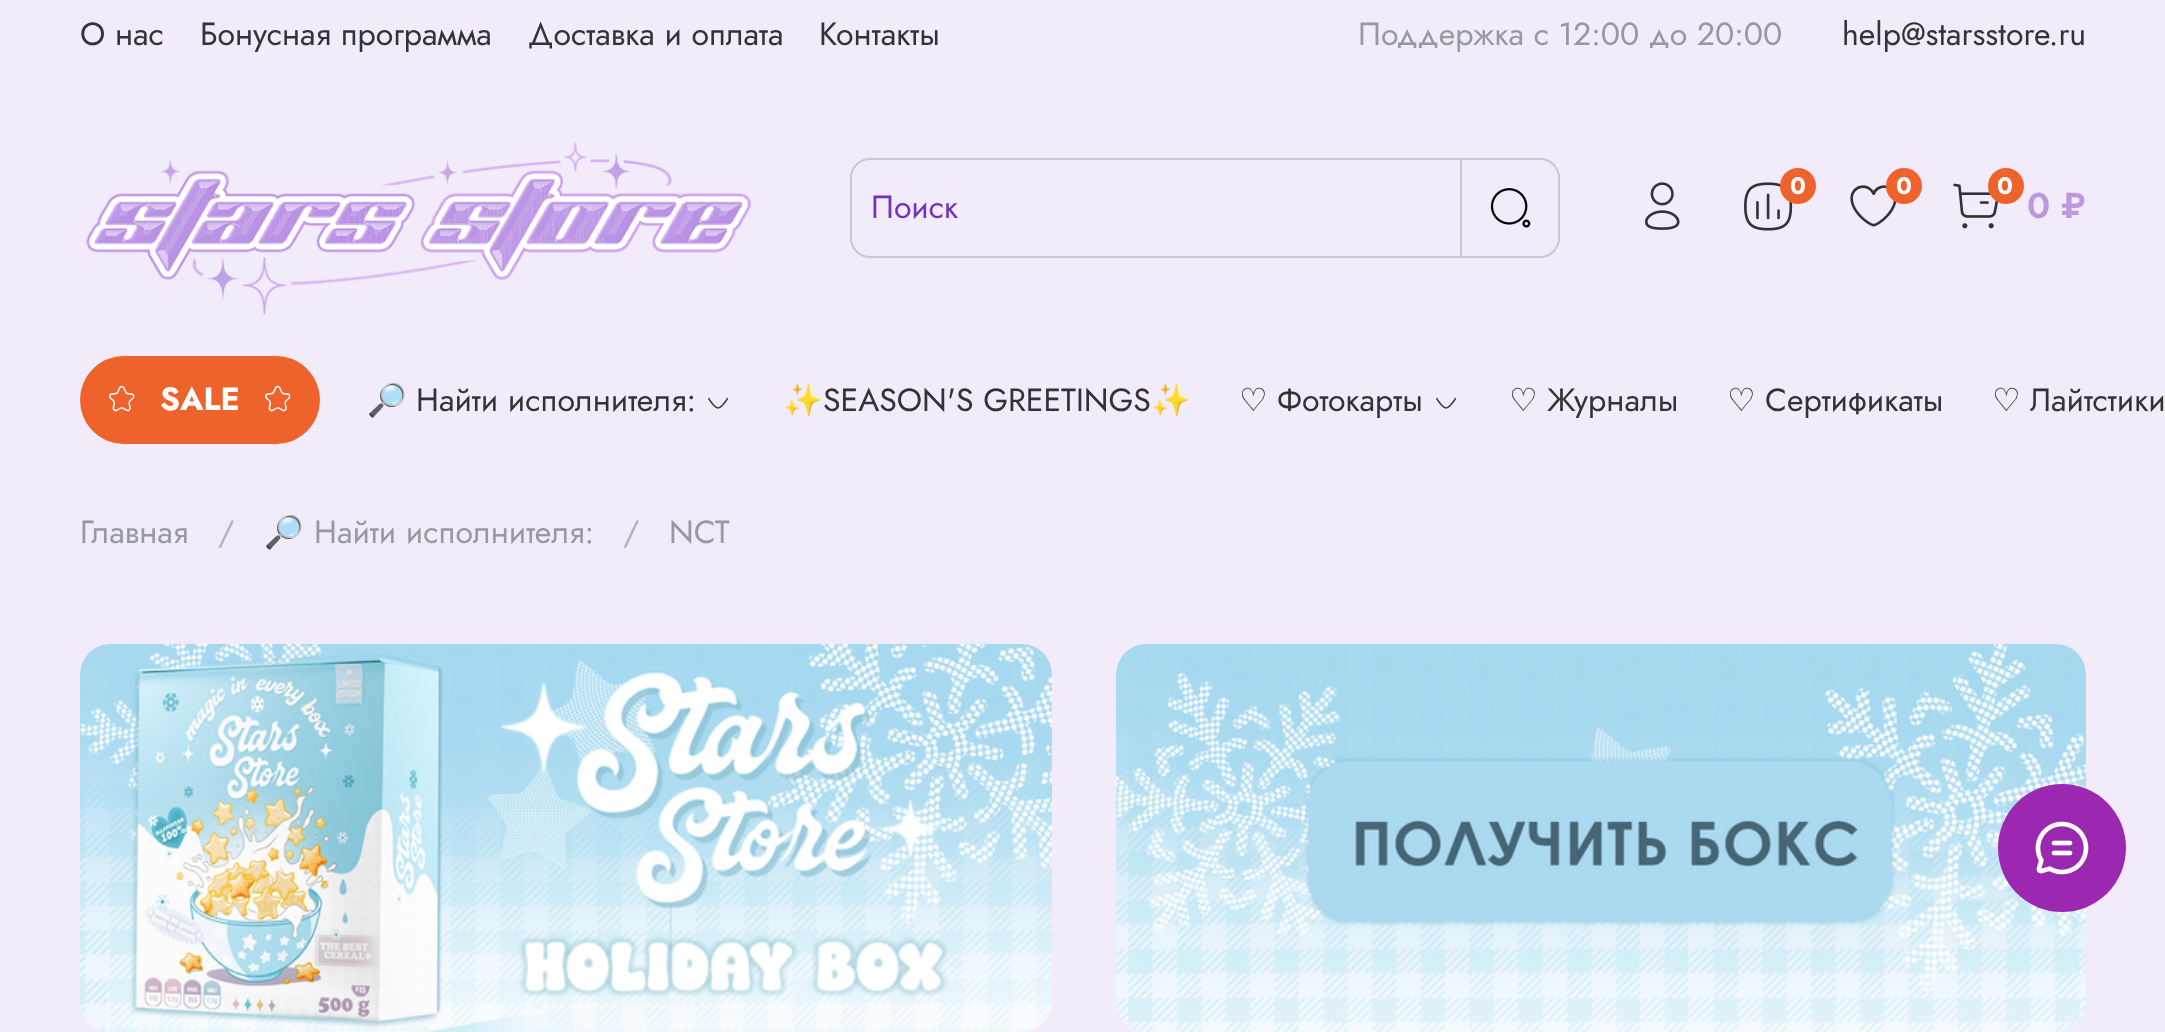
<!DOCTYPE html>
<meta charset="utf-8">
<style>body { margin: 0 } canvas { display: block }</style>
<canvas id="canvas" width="2165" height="1032"></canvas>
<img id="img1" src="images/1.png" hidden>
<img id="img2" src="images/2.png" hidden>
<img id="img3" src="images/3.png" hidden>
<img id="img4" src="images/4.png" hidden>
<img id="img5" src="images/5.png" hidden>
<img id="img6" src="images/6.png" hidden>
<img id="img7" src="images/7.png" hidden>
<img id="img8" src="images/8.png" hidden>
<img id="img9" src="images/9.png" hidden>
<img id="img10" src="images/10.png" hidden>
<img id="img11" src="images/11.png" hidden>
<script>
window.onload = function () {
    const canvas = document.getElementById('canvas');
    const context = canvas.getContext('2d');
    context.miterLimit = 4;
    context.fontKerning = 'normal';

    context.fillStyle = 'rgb(242, 235, 250)';
    context.fillRect(0, 0, 2165, 1032);
    context.drawImage(document.getElementById('img1'), 85, 142, 667, 173);
    context.fillStyle = 'rgb(202, 200, 200)';
    context.beginPath();
    context.moveTo(870, 158);
    context.lineTo(1460, 158);
    context.lineTo(1460, 258);
    context.lineTo(870, 258);
    context.bezierCurveTo(859, 258, 850, 249, 850, 238);
    context.lineTo(850, 178);
    context.bezierCurveTo(850, 167, 859, 158, 870, 158);
    context.closePath();
    context.moveTo(870, 160);
    context.lineTo(1460, 160);
    context.lineTo(1460, 256);
    context.lineTo(870, 256);
    context.bezierCurveTo(860, 256, 852, 248, 852, 238);
    context.lineTo(852, 178);
    context.bezierCurveTo(852, 168, 860, 160, 870, 160);
    context.closePath();
    context.fill('evenodd');
    context.beginPath();
    context.roundRect(1461, 159, 98, 98, [0, 19, 19, 0]);
    context.strokeStyle = 'rgb(202, 200, 200)';
    context.lineWidth = 2;
    context.stroke();
    context.drawImage(document.getElementById('img2'), 1490, 188, 41, 40);
    context.drawImage(document.getElementById('img3'), 1644, 182, 36, 48);
    context.drawImage(document.getElementById('img4'), 1744, 182, 49, 49);
    context.fillStyle = 'rgb(238, 99, 44)';
    context.beginPath();
    context.arc(1798, 186, 18, 0, 2 * Math.PI);
    context.fill();
    context.drawImage(document.getElementById('img5'), 1850, 185, 47, 42);
    context.beginPath();
    context.arc(1904, 186, 18, 0, 2 * Math.PI);
    context.fill();
    context.drawImage(document.getElementById('img6'), 1953, 183, 45, 46);
    context.beginPath();
    context.arc(2006, 186, 18, 0, 2 * Math.PI);
    context.fill();
    context.beginPath();
    context.roundRect(80, 356, 240, 88, 44);
    context.fill();
    context.drawImage(document.getElementById('img7'), 109, 385, 26, 27);
    context.drawImage(document.getElementById('img7'), 265, 385, 26, 27);
    context.drawImage(document.getElementById('img8'), 708, 397, 21, 12);
    context.drawImage(document.getElementById('img8'), 1436, 397, 21, 12);
    context.drawImage(document.getElementById('img9'), 80, 644, 972, 388);
    context.drawImage(document.getElementById('img10'), 1116, 644, 970, 388);
    context.fillStyle = 'rgb(156, 40, 177)';
    context.beginPath();
    context.arc(2062, 848, 64, 0, 2 * Math.PI);
    context.fill();
    context.drawImage(document.getElementById('img11'), 2035, 821, 54, 54);
    context.font = '32px Jost';
    context.fillStyle = 'rgb(51, 51, 51)';
    context.fillText('О нас', 80, 45);
    context.fillText('Бонусная программа', 200, 45);
    context.fillText('Доставка и оплата', 528, 45);
    context.fillText('Контакты', 819, 45);
    context.fillStyle = 'rgb(153, 153, 153)';
    context.fillText('Поддержка с 12:00 до 20:00', 1358, 45);
    context.fillStyle = 'rgb(51, 51, 51)';
    context.fillText('help@starsstore.ru', 1842, 45);
    context.fillStyle = 'rgb(116, 48, 194)';
    context.fillText('Поиск', 871, 218);
    context.font = 'bold 24px Jost';
    context.fillStyle = 'rgb(255, 255, 255)';
    context.fillText('0', 1790, 194);
    context.fillText('0', 1896, 194);
    context.fillText('0', 1997, 194);
    context.font = '600 36px Jost';
    context.fillStyle = 'rgb(189, 152, 222)';
    context.fillText('0 ₽', 2027, 218);
    context.font = 'bold 32px Jost';
    context.fillStyle = 'rgb(255, 255, 255)';
    context.fillText('SALE', 160, 410);
    context.font = '32px Noto Color Emoji';
    context.fillStyle = 'rgb(51, 51, 51)';
    context.fillText('🔎', 367, 411);
    context.font = '32px Jost';
    context.fillText('Найти исполнителя:', 416, 411);
    context.font = '32px Noto Color Emoji';
    context.fillText('✨', 783, 411);
    context.font = '32px Jost';
    context.fillText('SEASON\'S GREETINGS', 823, 411);
    context.font = '32px Noto Color Emoji';
    context.fillText('✨', 1151, 411);
    context.font = '32px DejaVu Sans';
    context.fillText('♡', 1239, 411);
    context.font = '32px Jost';
    context.fillText('Фотокарты', 1277, 411);
    context.font = '32px DejaVu Sans';
    context.fillText('♡', 1509, 411);
    context.font = '32px Jost';
    context.fillText('Журналы', 1547, 411);
    context.font = '32px DejaVu Sans';
    context.fillText('♡', 1727, 411);
    context.font = '32px Jost';
    context.fillText('Сертификаты', 1765, 411);
    context.font = '32px DejaVu Sans';
    context.fillText('♡', 1992, 411);
    context.font = '32px Jost';
    context.fillText('Лайтстики', 2030, 411);
    context.fillStyle = 'rgb(153, 153, 153)';
    context.fillText('Главная', 80, 543);
    context.fillStyle = 'rgb(180, 178, 182)';
    context.fillText('/', 218, 543);
    context.font = '32px Noto Color Emoji';
    context.fillStyle = 'rgb(153, 153, 153)';
    context.fillText('🔎', 264, 543);
    context.font = '32px Jost';
    context.fillText('Найти исполнителя:', 314, 543);
    context.fillStyle = 'rgb(180, 178, 182)';
    context.fillText('/', 623, 543);
    context.fillStyle = 'rgb(153, 153, 153)';
    context.fillText('NCT', 669, 543);
};
</script>
